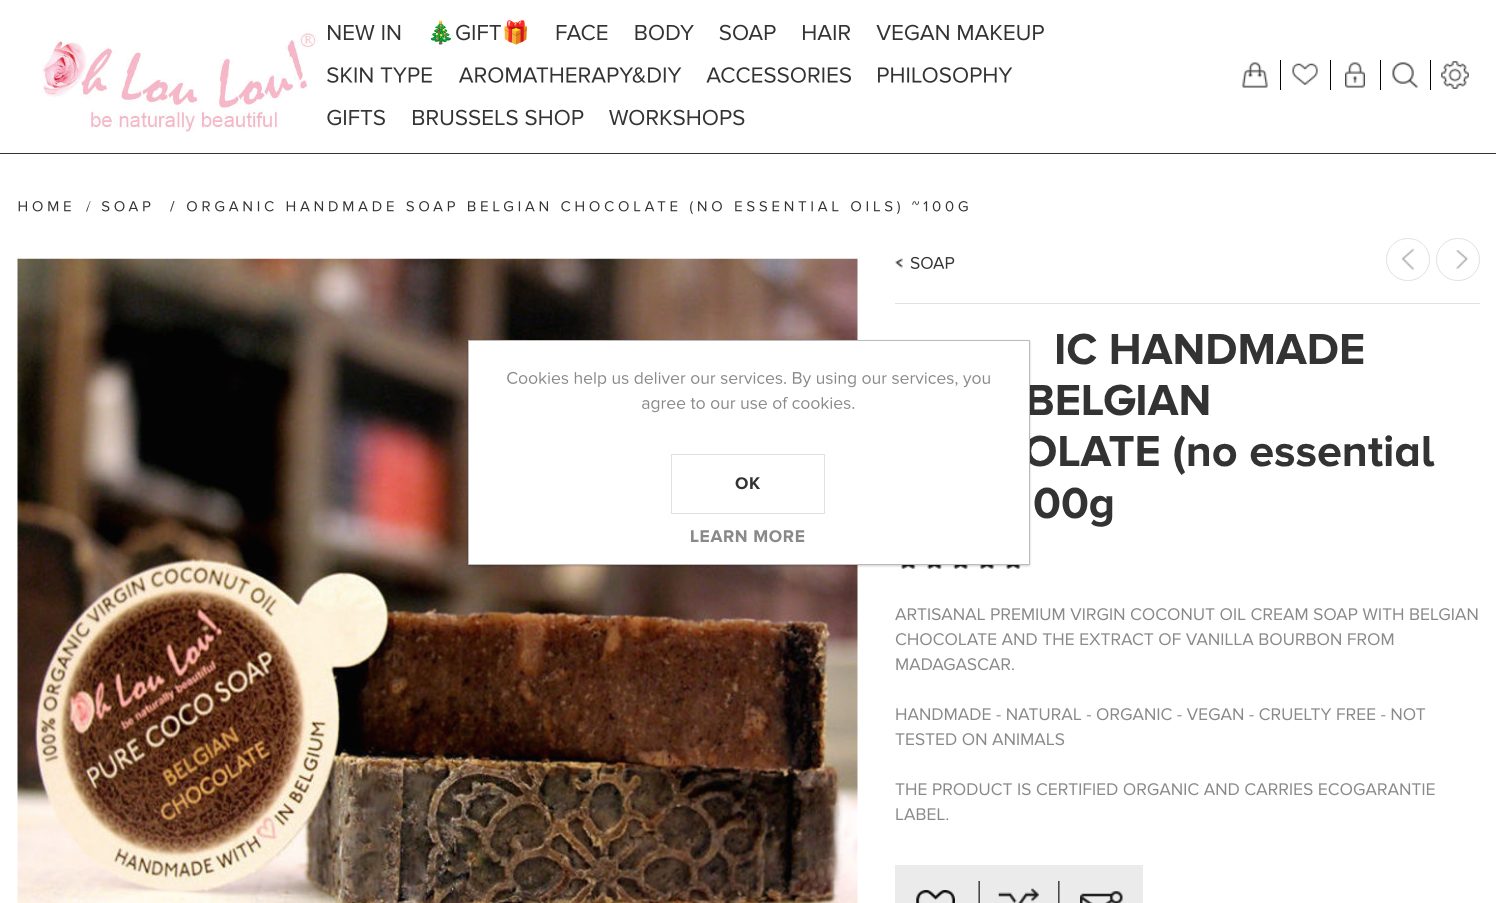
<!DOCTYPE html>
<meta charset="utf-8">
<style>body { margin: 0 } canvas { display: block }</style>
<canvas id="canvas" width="1496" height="903"></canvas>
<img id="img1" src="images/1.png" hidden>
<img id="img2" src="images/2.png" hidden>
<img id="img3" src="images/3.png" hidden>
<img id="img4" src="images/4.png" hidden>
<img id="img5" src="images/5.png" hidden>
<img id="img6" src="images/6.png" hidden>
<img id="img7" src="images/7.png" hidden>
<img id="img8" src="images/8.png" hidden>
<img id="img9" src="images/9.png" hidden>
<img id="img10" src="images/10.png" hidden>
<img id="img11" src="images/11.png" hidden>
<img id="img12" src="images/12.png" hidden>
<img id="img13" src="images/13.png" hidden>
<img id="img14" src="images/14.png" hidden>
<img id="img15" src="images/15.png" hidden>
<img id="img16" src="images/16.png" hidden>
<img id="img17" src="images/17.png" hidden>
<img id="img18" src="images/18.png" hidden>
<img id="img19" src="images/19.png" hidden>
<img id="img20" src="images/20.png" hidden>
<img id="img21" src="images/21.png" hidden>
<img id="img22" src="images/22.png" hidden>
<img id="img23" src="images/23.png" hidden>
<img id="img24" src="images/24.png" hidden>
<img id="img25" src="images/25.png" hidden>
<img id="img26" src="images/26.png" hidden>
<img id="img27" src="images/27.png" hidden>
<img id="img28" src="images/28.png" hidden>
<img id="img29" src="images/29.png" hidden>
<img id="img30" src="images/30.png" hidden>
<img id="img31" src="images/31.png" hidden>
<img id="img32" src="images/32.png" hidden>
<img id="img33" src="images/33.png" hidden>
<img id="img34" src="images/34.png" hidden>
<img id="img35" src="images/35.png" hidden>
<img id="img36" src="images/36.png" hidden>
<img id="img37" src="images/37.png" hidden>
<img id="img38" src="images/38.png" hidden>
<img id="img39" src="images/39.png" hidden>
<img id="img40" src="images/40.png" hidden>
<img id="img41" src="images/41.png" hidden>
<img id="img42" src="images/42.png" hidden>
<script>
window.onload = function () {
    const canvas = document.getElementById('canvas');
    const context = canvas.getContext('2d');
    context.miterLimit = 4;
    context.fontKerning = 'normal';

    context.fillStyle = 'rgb(255, 255, 255)';
    context.fillRect(0, 0, 1496, 903);
    context.fillStyle = 'rgb(51, 51, 51)';
    context.fillRect(0, 153, 1496, 1);
    context.drawImage(document.getElementById('img1'), 42, 31, 276, 101);
    context.drawImage(document.getElementById('img2'), 328, 25, 73, 15);
    context.drawImage(document.getElementById('img3'), 456, 24, 45, 17);
    context.drawImage(document.getElementById('img4'), 556, 24, 52, 17);
    context.drawImage(document.getElementById('img5'), 635, 24, 59, 17);
    context.drawImage(document.getElementById('img6'), 719, 24, 57, 17);
    context.drawImage(document.getElementById('img7'), 803, 25, 47, 15);
    context.drawImage(document.getElementById('img8'), 876, 24, 168, 17);
    context.drawImage(document.getElementById('img9'), 327, 67, 105, 16);
    context.drawImage(document.getElementById('img10'), 459, 67, 223, 16);
    context.drawImage(document.getElementById('img11'), 706, 67, 145, 16);
    context.drawImage(document.getElementById('img12'), 878, 67, 135, 16);
    context.drawImage(document.getElementById('img13'), 327, 109, 58, 17);
    context.drawImage(document.getElementById('img14'), 413, 109, 171, 17);
    context.drawImage(document.getElementById('img15'), 609, 109, 136, 17);
    context.drawImage(document.getElementById('img16'), 1242, 62, 26, 26);
    context.fillStyle = 'rgb(6, 6, 6)';
    context.fillRect(1280, 60, 1, 30);
    context.drawImage(document.getElementById('img17'), 1292, 63, 26, 22);
    context.drawImage(document.getElementById('img18'), 1345, 62, 20, 26);
    context.fillRect(1330, 60, 1, 30);
    context.drawImage(document.getElementById('img19'), 1392, 62, 26, 26);
    context.fillRect(1380, 60, 1, 30);
    context.drawImage(document.getElementById('img20'), 1441, 61, 28, 28);
    context.fillRect(1430, 60, 1, 30);
    context.drawImage(document.getElementById('img21'), 18, 201, 53, 11);
    context.fillStyle = 'rgb(51, 51, 51)';
    context.beginPath();
    context.moveTo(86, 211.5);
    context.lineTo(90, 201);
    context.lineTo(90.5, 201);
    context.lineTo(87, 211.5);
    context.closePath();
    context.fill();
    context.drawImage(document.getElementById('img22'), 101, 201, 50, 11);
    context.beginPath();
    context.moveTo(170, 211.5);
    context.lineTo(173.5, 201);
    context.lineTo(174.5, 201);
    context.lineTo(171, 211.5);
    context.closePath();
    context.fill();
    context.drawImage(document.getElementById('img23'), 187, 201, 781, 14);
    context.drawImage(document.getElementById('img24'), 17, 258, 841, 645);
    context.drawImage(document.getElementById('img25'), 895, 258, 8, 10);
    context.drawImage(document.getElementById('img26'), 910, 256, 45, 13);
    context.drawImage(document.getElementById('img27'), 1401, 248, 13, 22);
    context.beginPath();
    context.roundRect(1386.5, 238.5, 43, 42, 21);
    context.strokeStyle = 'rgb(225, 225, 225)';
    context.stroke();
    context.drawImage(document.getElementById('img28'), 1456, 250, 12, 19);
    context.beginPath();
    context.roundRect(1436.5, 238.5, 43, 42, 21);
    context.stroke();
    context.fillStyle = 'rgb(225, 225, 225)';
    context.fillRect(895, 303, 585, 1);
    context.drawImage(document.getElementById('img29'), 901, 565, 120, 4);
    context.drawImage(document.getElementById('img30'), 901, 565, 120, 4);
    context.drawImage(document.getElementById('img31'), 895, 608, 583, 13);
    context.drawImage(document.getElementById('img32'), 895, 633, 499, 13);
    context.drawImage(document.getElementById('img33'), 896, 658, 118, 13);
    context.drawImage(document.getElementById('img34'), 896, 708, 530, 13);
    context.drawImage(document.getElementById('img35'), 895, 733, 170, 13);
    context.drawImage(document.getElementById('img36'), 895, 783, 540, 13);
    context.drawImage(document.getElementById('img37'), 896, 808, 53, 13);
    context.fillStyle = 'rgb(235, 235, 235)';
    context.fillRect(895, 865, 83, 38);
    context.drawImage(document.getElementById('img38'), 916, 890, 39, 13);
    context.fillRect(978, 865, 165, 38);
    context.drawImage(document.getElementById('img39'), 1080, 891, 43, 12);
    context.fillStyle = 'rgb(73, 73, 73)';
    context.fillRect(979, 881, 1, 22);
    context.fillStyle = 'rgb(138, 138, 138)';
    context.fillRect(978, 881, 1, 22);
    context.drawImage(document.getElementById('img40'), 998, 888, 41, 15);
    context.fillRect(1059, 881, 1, 22);
    context.fillStyle = 'rgb(73, 73, 73)';
    context.fillRect(1058, 881, 1, 22);
    context.fillStyle = 'rgba(0, 0, 0, 0.2)';
    context.filter = 'blur(1px)';
    context.beginPath();
    context.rect(468, 341, 562, 225);
    context.fill();
    context.filter = 'none';
    context.font = '22px Noto Color Emoji';
    context.fillStyle = 'rgb(51, 51, 51)';
    context.fillText('🎄', 427, 40);
    context.fillText('🎁', 502, 40);
    context.font = 'bold 45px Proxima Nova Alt';
    context.fillText('IC HANDMADE', 1054, 364);
    context.fillText('BELGIAN', 1025, 415);
    context.fillText('OLATE (no essential', 1023, 466);
    context.fillText('00g', 1033, 518);
    context.fillStyle = 'rgb(255, 255, 255)';
    context.beginPath();
    context.rect(468.5, 340.5, 561, 224);
    context.fill();
    context.strokeStyle = 'rgb(187, 187, 187)';
    context.stroke();
    context.drawImage(document.getElementById('img41'), 507, 371, 483, 17);
    context.drawImage(document.getElementById('img42'), 642, 396, 213, 17);
    context.strokeStyle = 'rgb(225, 225, 225)';
    context.strokeRect(671.5, 454.5, 153, 59);
    context.letterSpacing = '0.6px';
    context.font = 'bold 17.5px Proxima Nova Alt';
    context.fillStyle = 'rgb(51, 51, 51)';
    context.fillText('OK', 735, 489);
    context.fillStyle = 'rgb(137, 137, 137)';
    context.fillText('LEARN MORE', 690, 542);
};
</script>
